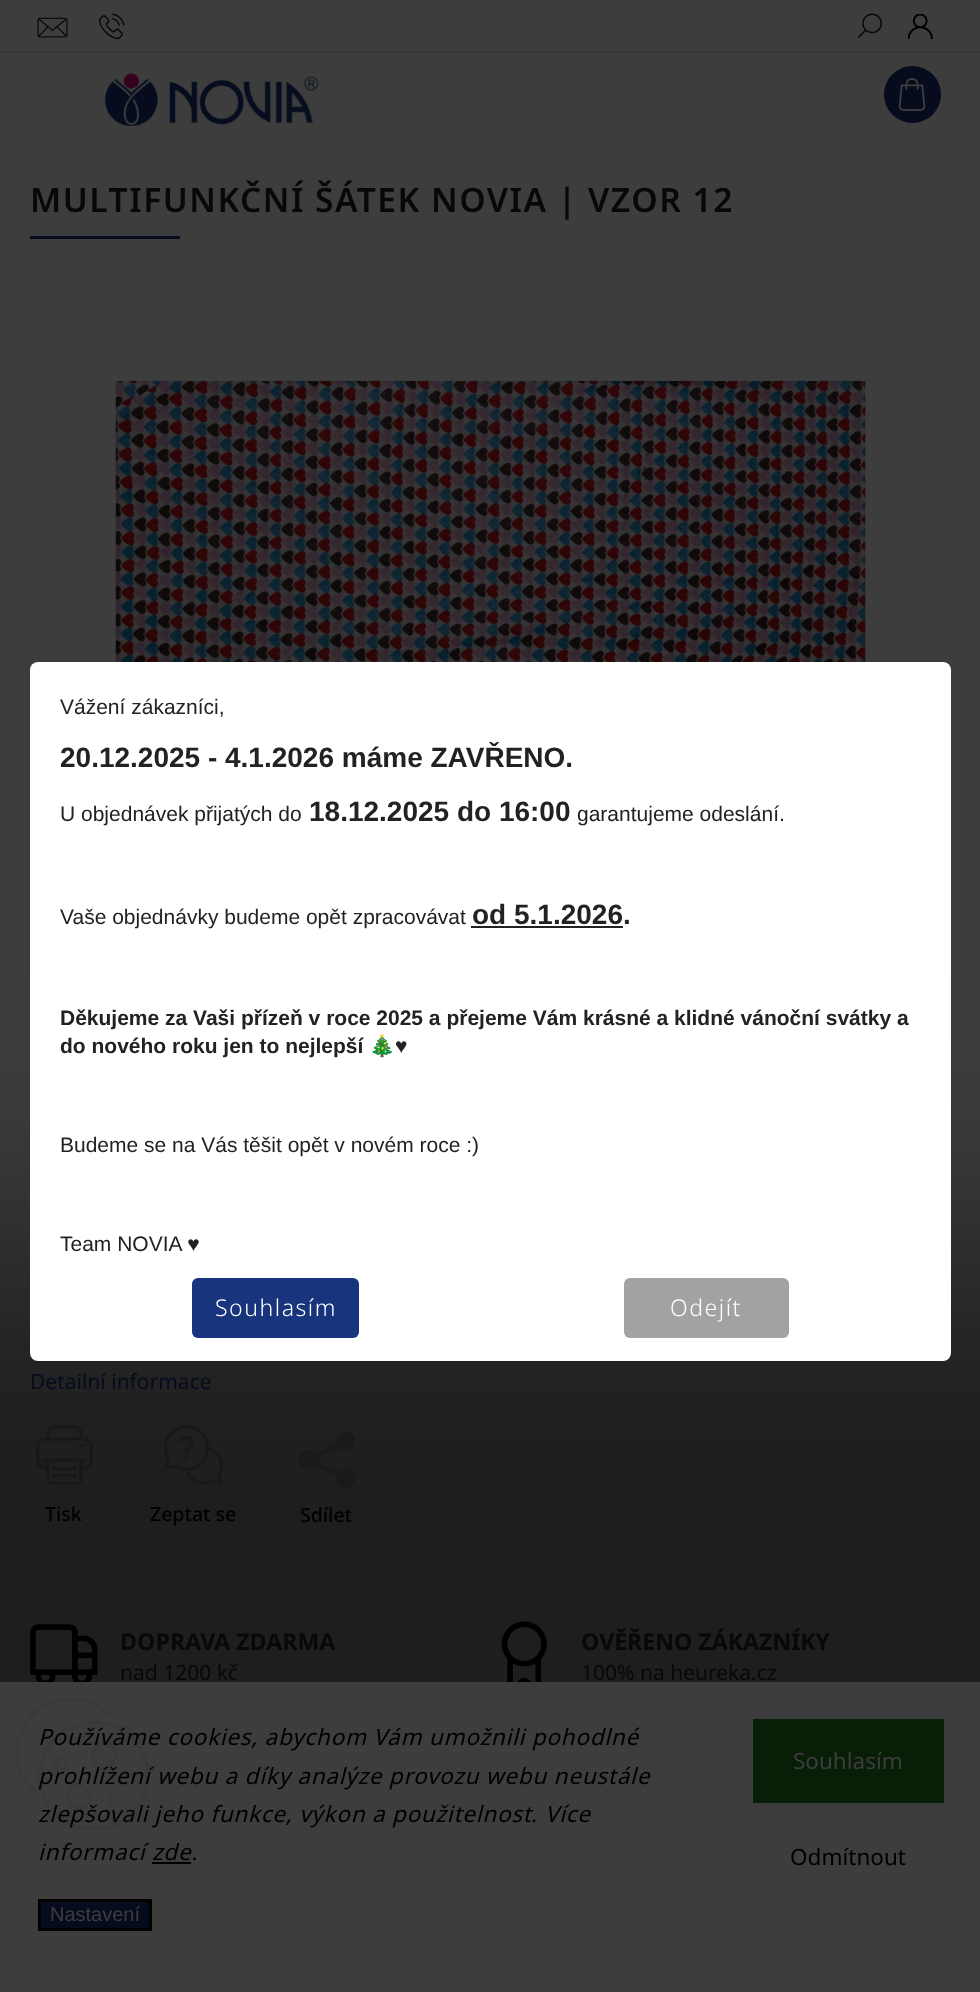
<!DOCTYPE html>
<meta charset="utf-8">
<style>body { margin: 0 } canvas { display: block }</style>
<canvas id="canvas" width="980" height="1992"></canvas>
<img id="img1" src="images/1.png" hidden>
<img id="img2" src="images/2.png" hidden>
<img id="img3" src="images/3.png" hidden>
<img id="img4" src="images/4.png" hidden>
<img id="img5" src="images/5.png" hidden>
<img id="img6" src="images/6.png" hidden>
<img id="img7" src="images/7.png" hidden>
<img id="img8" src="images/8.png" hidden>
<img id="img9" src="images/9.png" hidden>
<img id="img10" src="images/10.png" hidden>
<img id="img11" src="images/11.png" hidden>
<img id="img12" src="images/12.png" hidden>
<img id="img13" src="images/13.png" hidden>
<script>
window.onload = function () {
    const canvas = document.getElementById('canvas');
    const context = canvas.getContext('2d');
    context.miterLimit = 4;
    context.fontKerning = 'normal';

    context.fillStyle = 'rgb(61, 61, 61)';
    context.fillRect(0, 0, 980, 1992);
    context.fillStyle = 'rgb(56, 56, 56)';
    context.fillRect(0, 51, 980, 2);
    context.drawImage(document.getElementById('img1'), 37, 17, 31, 21);
    context.drawImage(document.getElementById('img2'), 99, 13, 26, 27);
    context.drawImage(document.getElementById('img3'), 858, 13, 24, 25);
    context.drawImage(document.getElementById('img4'), 908, 14, 25, 25);
    context.drawImage(document.getElementById('img5'), 105, 73, 214, 53);
    context.fillStyle = 'rgb(6, 12, 30)';
    context.beginPath();
    context.arc(912.5, 94.5, 28.5, 0, 2 * Math.PI);
    context.fill();
    context.drawImage(document.getElementById('img6'), 898, 78, 28, 33);
    context.fillRect(30, 236, 150, 3);
    context.drawImage(document.getElementById('img7'), 115, 374, 751, 288);
    context.drawImage(document.getElementById('img8'), 36, 1425, 57, 60);
    context.drawImage(document.getElementById('img9'), 164, 1425, 60, 60);
    context.drawImage(document.getElementById('img10'), 298, 1432, 58, 56);
    context.drawImage(document.getElementById('img11'), 30, 1624, 68, 58);
    context.drawImage(document.getElementById('img12'), 501, 1621, 46, 61);
    context.fillStyle = 'rgba(0, 0, 0, 0.5)';
    context.filter = 'blur(120px)';
    context.beginPath();
    context.rect(-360, 1251, 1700, 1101);
    context.fill();
    context.filter = 'none';
    context.fillStyle = 'rgb(255, 255, 255)';
    context.beginPath();
    context.roundRect(30, 662, 921, 699, 8);
    context.fill();
    context.fillStyle = 'rgb(34, 34, 34)';
    context.fillRect(471, 926, 152, 2);
    context.fillStyle = 'rgb(23, 52, 124)';
    context.beginPath();
    context.roundRect(192, 1278, 167, 60, 6);
    context.fill();
    context.fillStyle = 'rgb(162, 162, 162)';
    context.beginPath();
    context.roundRect(624, 1278, 165, 60, 6);
    context.fill();
    context.fillStyle = 'rgb(61, 61, 61)';
    context.fillRect(0, 1682, 980, 310);
    context.drawImage(document.getElementById('img13'), 15, 1697, 135, 134);
    context.fillStyle = 'rgb(0, 0, 0)';
    context.fillRect(152, 1862, 39, 2);
    context.fillStyle = 'rgb(6, 12, 30)';
    context.beginPath();
    context.rect(39.5, 1900.5, 111, 29);
    context.fill();
    context.strokeStyle = 'rgb(0, 0, 0)';
    context.lineWidth = 3;
    context.stroke();
    context.fillStyle = 'rgb(9, 30, 6)';
    context.fillRect(753, 1719, 191, 84);
    context.letterSpacing = '1.5px';
    context.font = '600 33.6px Noto Sans';
    context.fillStyle = 'rgb(8, 8, 8)';
    context.fillText('MULTIFUNKČNÍ ŠÁTEK NOVIA | VZOR 12', 30, 212);
    context.letterSpacing = '0px';
    context.font = '21px Noto Sans';
    context.fillStyle = 'rgb(6, 12, 30)';
    context.fillText('Detailní informace', 30, 1389);
    context.font = '500 19.5px Noto Sans';
    context.fillStyle = 'rgb(0, 0, 0)';
    context.fillText('Tisk', 45, 1521);
    context.fillText('Zeptat se', 150, 1521);
    context.fillText('Sdílet', 300, 1522);
    context.font = 'bold 23.1px Noto Sans';
    context.fillStyle = 'rgb(8, 8, 8)';
    context.fillText('DOPRAVA ZDARMA', 120, 1650);
    context.font = '21px Noto Sans';
    context.fillText('nad 1200 kč', 120, 1680);
    context.font = 'bold 23.1px Noto Sans';
    context.fillText('OVĚŘENO ZÁKAZNÍKY', 581, 1650);
    context.font = '21px Noto Sans';
    context.fillText('100% na heureka.cz', 581, 1680);
    context.font = '21px Liberation Sans';
    context.fillStyle = 'rgb(34, 34, 34)';
    context.fillText('Vážení zákazníci,', 60, 714);
    context.font = 'bold 28px Liberation Sans';
    context.fillText('20.12.2025 - 4.1.2026 máme ZAVŘENO.', 60, 767);
    context.font = '21px Liberation Sans';
    context.fillText('U objednávek přijatých do', 60, 821);
    context.font = 'bold 28px Liberation Sans';
    context.fillText('18.12.2025 do 16:00', 309, 821);
    context.font = '21px Liberation Sans';
    context.fillText('garantujeme odeslání.', 577, 821);
    context.fillText('Vaše objednávky budeme opět zpracovávat', 60, 924);
    context.font = 'bold 28px Liberation Sans';
    context.fillText('od 5.1.2026.', 472, 924);
    context.font = 'bold 21px Liberation Sans';
    context.fillText('Děkujeme za Vaši přízeň v roce 2025 a přejeme Vám krásné a klidné vánoční svátky a', 60, 1025);
    context.fillText('do nového roku jen to nejlepší', 60, 1053);
    context.font = '21px Noto Color Emoji';
    context.fillText('🎄', 369, 1053);
    context.font = '21px Liberation Sans';
    context.fillText('♥', 395, 1053);
    context.fillText('Budeme se na Vás těšit opět v novém roce :)', 60, 1152);
    context.fillText('Team NOVIA ♥', 60, 1251);
    context.letterSpacing = '1.5px';
    context.font = '300 23.1px Noto Sans';
    context.fillStyle = 'rgb(255, 255, 255)';
    context.fillText('Souhlasím', 215, 1316);
    context.fillText('Odejít', 670, 1316);
    context.letterSpacing = '0.75px';
    context.font = 'italic 22.5px Noto Sans';
    context.fillStyle = 'rgb(0, 0, 0)';
    context.fillText('Používáme cookies, abychom Vám umožnili pohodlné', 38, 1745);
    context.fillText('prohlížení webu a díky analýze provozu webu neustále', 38, 1784);
    context.fillText('zlepšovali jeho funkce, výkon a použitelnost', 38, 1822);
    context.font = '22.5px Noto Sans';
    context.fillText('.', 531, 1822);
    context.font = 'italic 22.5px Noto Sans';
    context.fillText('Více', 545, 1822);
    context.fillText('informací zde.', 38, 1860);
    context.letterSpacing = '0px';
    context.font = '20px Liberation Sans';
    context.fillStyle = 'rgb(61, 61, 61)';
    context.fillText('Nastavení', 50, 1921);
    context.font = '22.5px Noto Sans';
    context.fillText('Souhlasím', 793, 1769);
    context.fillStyle = 'rgb(0, 0, 0)';
    context.fillText('Odmítnout', 790, 1865);
};
</script>
